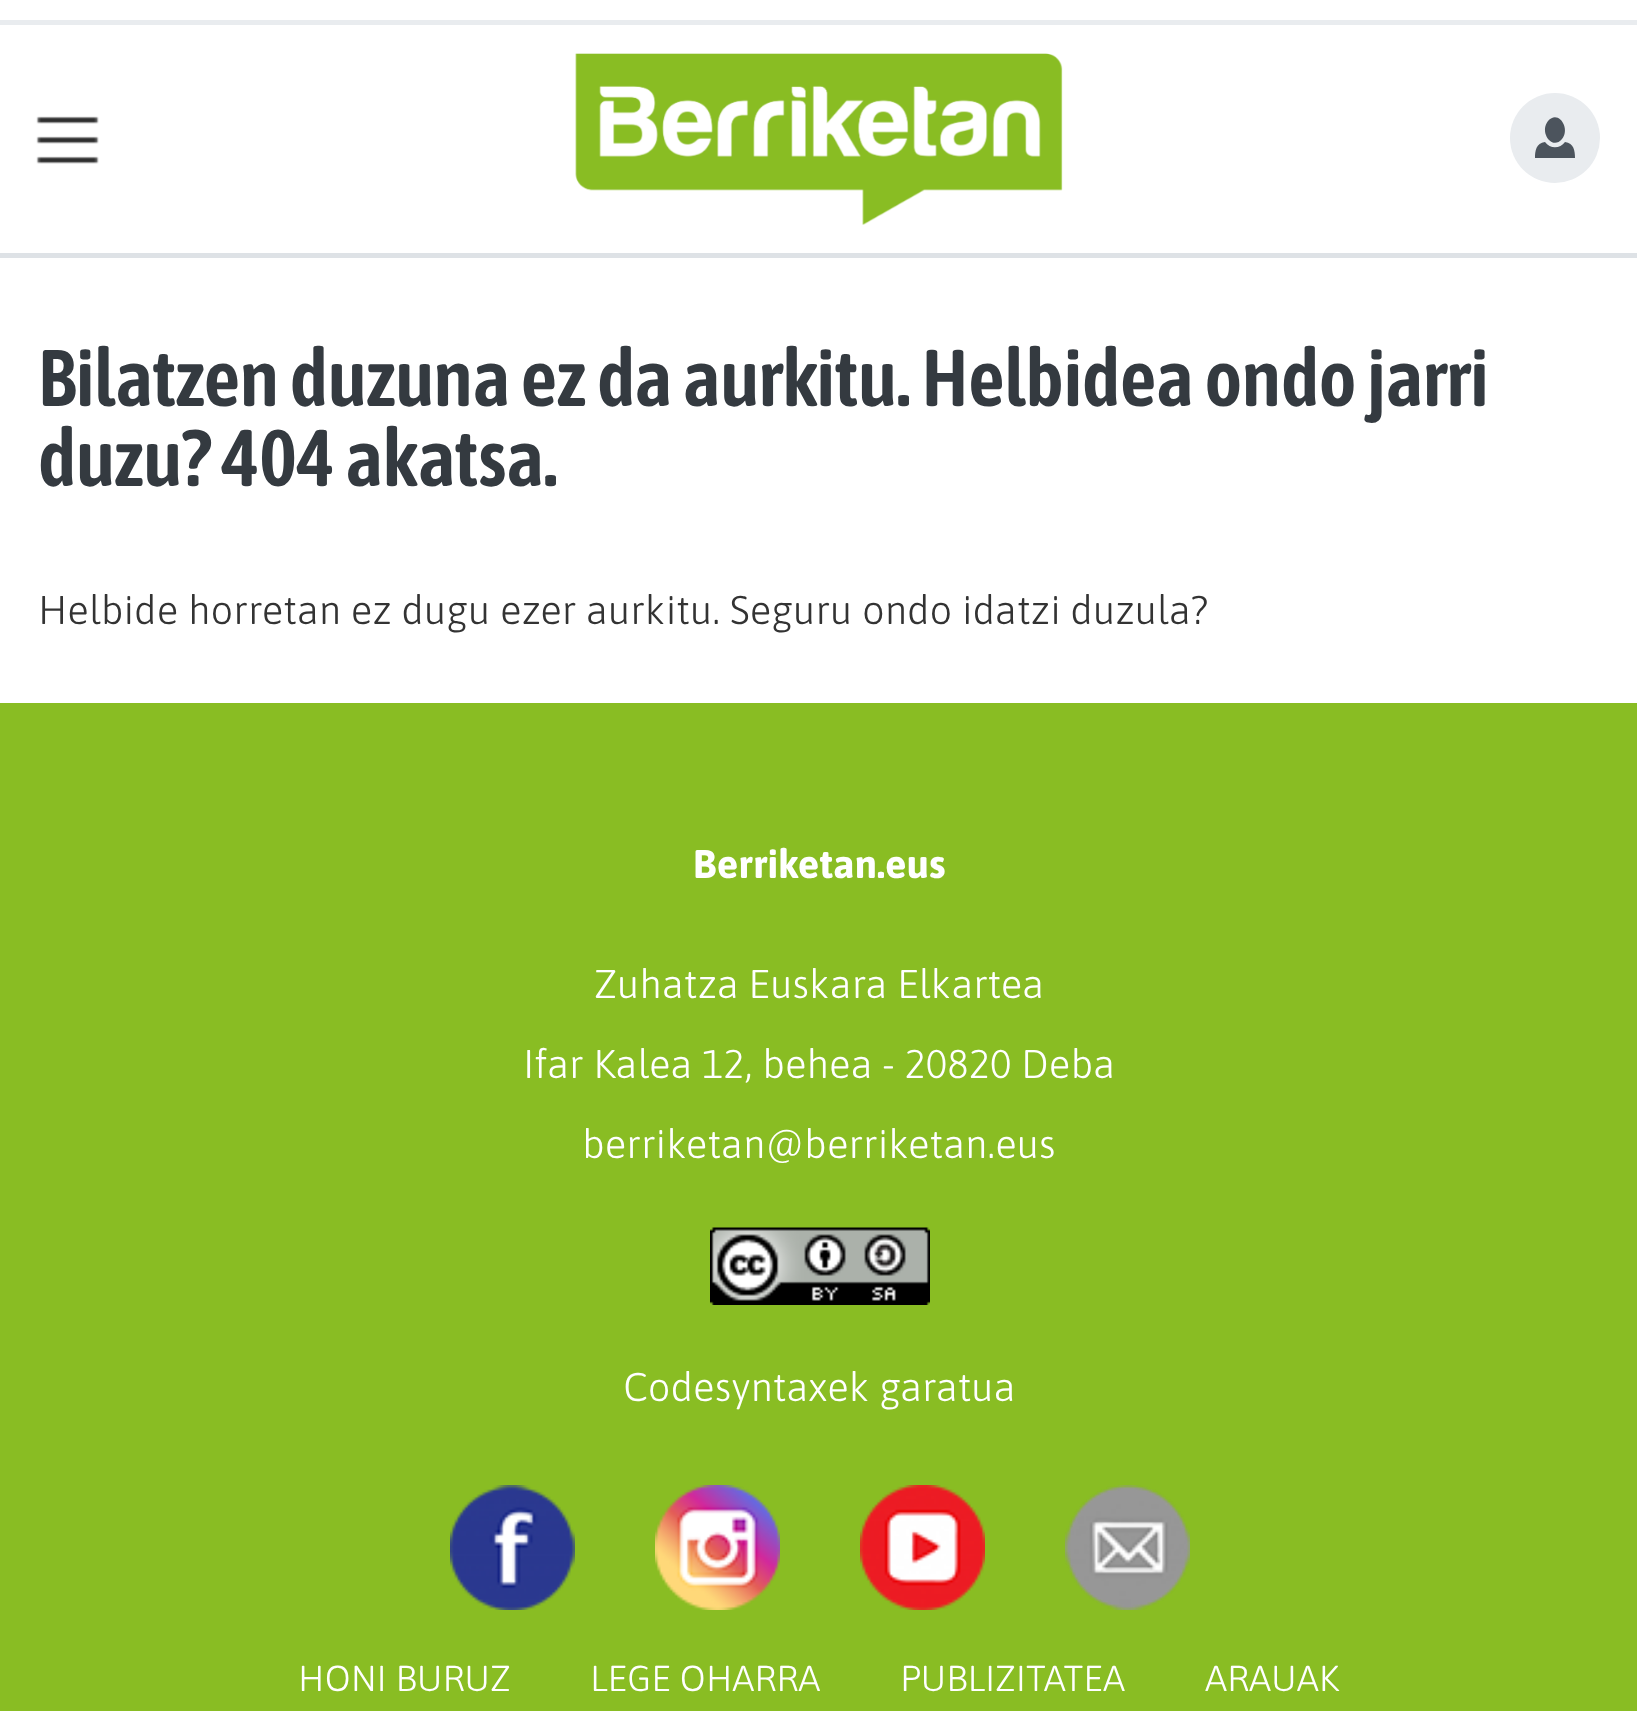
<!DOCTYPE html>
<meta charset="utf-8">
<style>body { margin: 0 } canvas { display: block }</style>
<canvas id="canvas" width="1637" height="1711"></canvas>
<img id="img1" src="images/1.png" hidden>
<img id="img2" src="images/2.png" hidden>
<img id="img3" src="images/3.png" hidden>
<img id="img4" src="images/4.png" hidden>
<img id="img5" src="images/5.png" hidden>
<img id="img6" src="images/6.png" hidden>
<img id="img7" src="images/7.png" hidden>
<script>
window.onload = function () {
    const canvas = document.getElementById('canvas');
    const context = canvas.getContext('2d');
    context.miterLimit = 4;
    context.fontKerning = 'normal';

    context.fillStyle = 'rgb(255, 255, 255)';
    context.fillRect(0, 0, 1637, 1711);
    context.fillStyle = 'rgb(233, 236, 239)';
    context.fillRect(0, 20, 1637, 5);
    context.drawImage(document.getElementById('img1'), 36, 116, 63, 48);
    context.drawImage(document.getElementById('img2'), 575, 53, 488, 172);
    context.beginPath();
    context.arc(1555, 138, 45, 0, 2 * Math.PI);
    context.fill();
    context.fillStyle = 'rgb(76, 84, 93)';
    context.beginPath();
    context.moveTo(1548, 121);
    context.bezierCurveTo(1558, 109, 1571, 128, 1562, 139);
    context.bezierCurveTo(1552, 151, 1539, 132, 1548, 121);
    context.closePath();
    context.moveTo(1545, 142);
    context.bezierCurveTo(1550, 149, 1560, 149, 1565, 142);
    context.bezierCurveTo(1574, 143, 1575, 151, 1575, 158);
    context.lineTo(1535, 158);
    context.bezierCurveTo(1535, 151, 1536, 143, 1545, 142);
    context.closePath();
    context.fill();
    context.fillStyle = 'rgb(222, 226, 230)';
    context.fillRect(0, 253, 1637, 5);
    context.fillStyle = 'rgb(137, 189, 35)';
    context.fillRect(0, 703, 1637, 1008);
    context.drawImage(document.getElementById('img3'), 710, 1227, 220, 78);
    context.drawImage(document.getElementById('img4'), 450, 1485, 125, 125);
    context.drawImage(document.getElementById('img5'), 655, 1485, 125, 125);
    context.drawImage(document.getElementById('img6'), 860, 1485, 125, 125);
    context.drawImage(document.getElementById('img7'), 1065, 1485, 125, 125);
    context.font = '600 80px Asap Condensed';
    context.fillStyle = 'rgb(52, 58, 64)';
    context.fillText('Bilatzen duzuna ez da aurkitu. Helbidea ondo jarri', 38, 406);
    context.fillText('duzu? 404 akatsa.', 38, 486);
    context.font = '300 40px Asap';
    context.fillStyle = 'rgb(51, 51, 51)';
    context.fillText('Helbide horretan ez dugu ezer aurkitu. Seguru ondo idatzi duzula?', 38, 624);
    context.font = 'bold 40px Asap';
    context.fillStyle = 'rgb(255, 255, 255)';
    context.fillText('Berriketan.eus', 693, 878);
    context.font = '300 40px Asap';
    context.fillText('Zuhatza Euskara Elkartea', 594, 998);
    context.fillText('Ifar Kalea 12, behea - 20820 Deba', 523, 1078);
    context.fillText('berriketan@berriketan.eus', 582, 1158);
    context.fillText('Codesyntaxek garatua', 623, 1401);
    context.font = '300 36px Asap';
    context.fillText('HONI BURUZ', 298, 1691);
    context.fillText('LEGE OHARRA', 590, 1691);
    context.fillText('PUBLIZITATEA', 900, 1691);
    context.fillText('ARAUAK', 1205, 1691);
};
</script>
